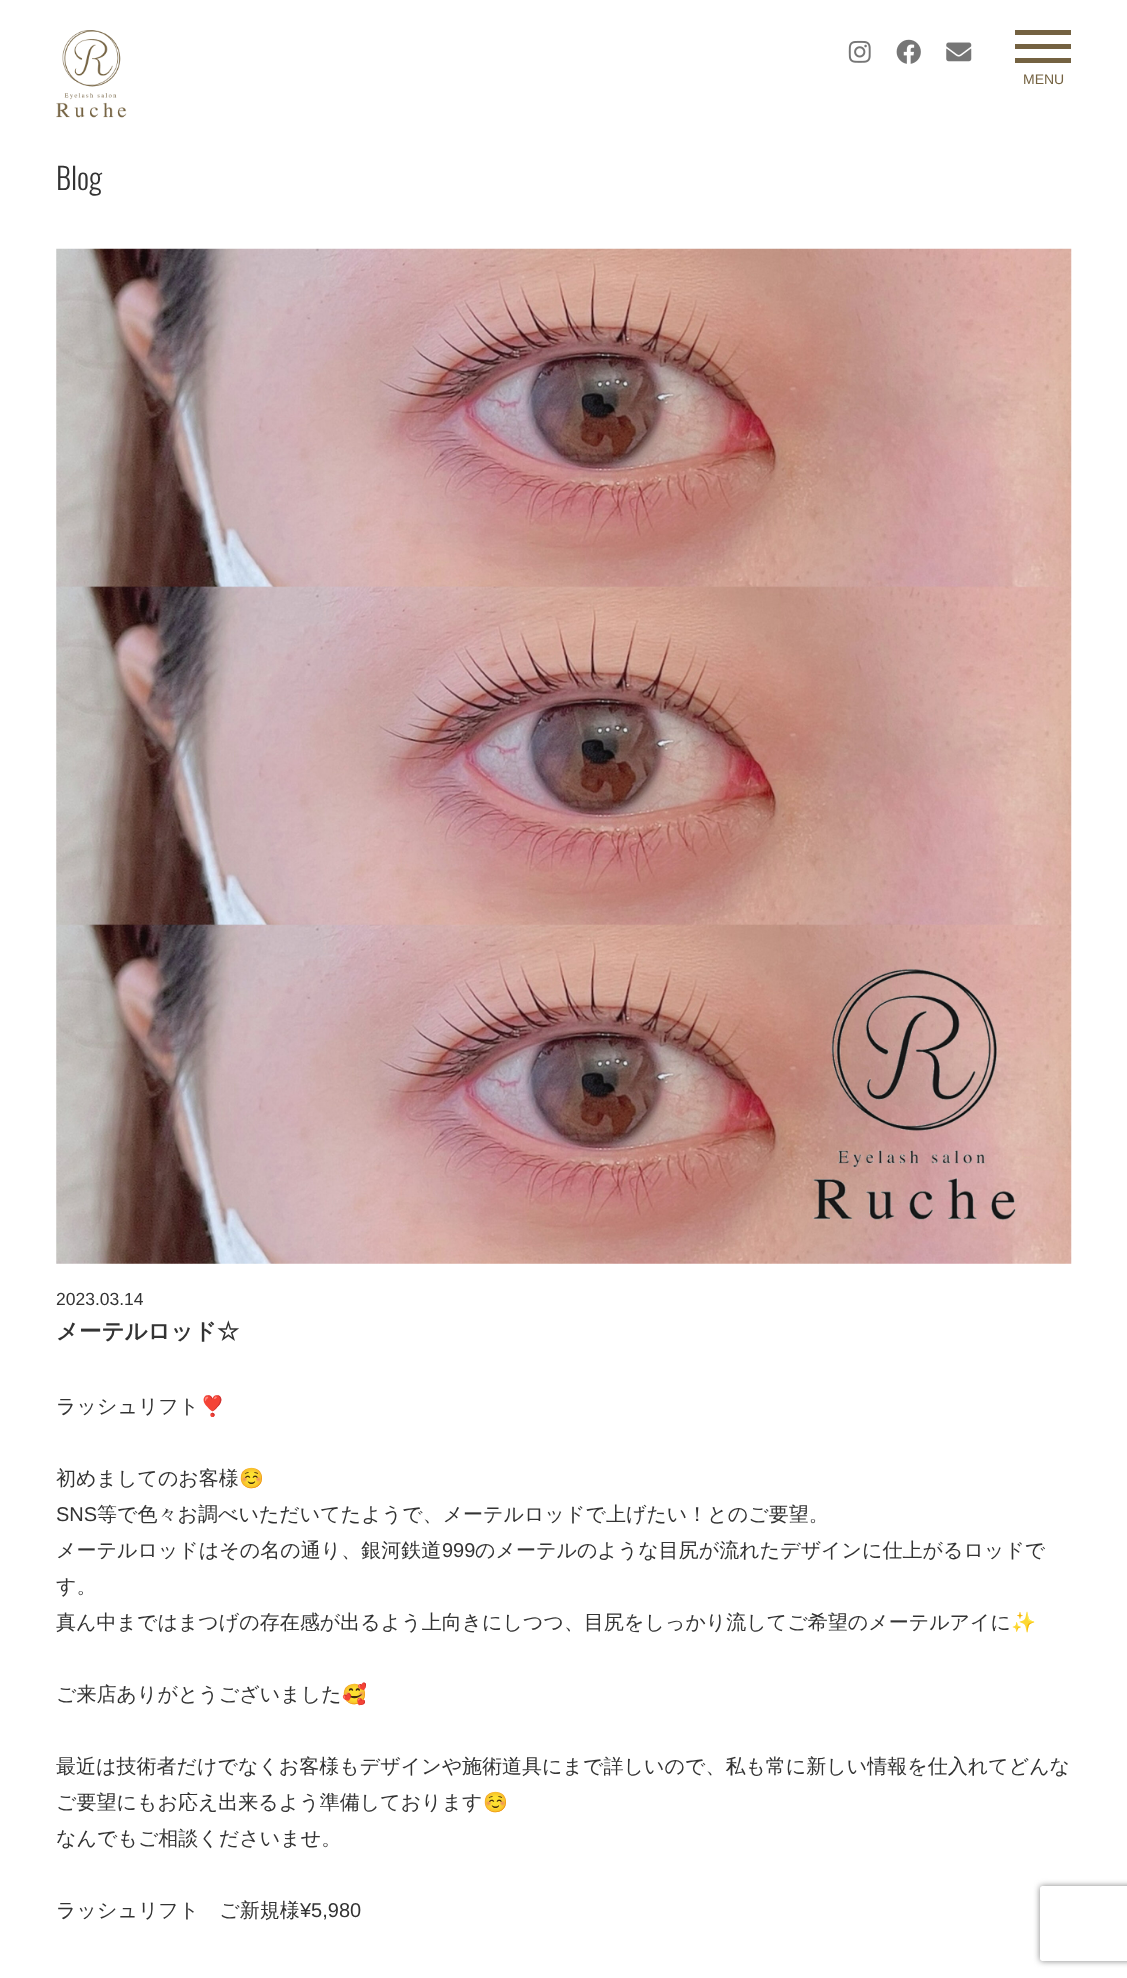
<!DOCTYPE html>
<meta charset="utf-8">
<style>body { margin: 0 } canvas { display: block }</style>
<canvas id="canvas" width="1127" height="1978"></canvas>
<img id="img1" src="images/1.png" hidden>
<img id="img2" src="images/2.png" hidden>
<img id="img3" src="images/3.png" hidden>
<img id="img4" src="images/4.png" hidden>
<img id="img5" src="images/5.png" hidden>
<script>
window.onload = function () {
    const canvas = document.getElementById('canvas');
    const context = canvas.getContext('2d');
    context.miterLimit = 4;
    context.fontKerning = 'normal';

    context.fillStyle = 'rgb(255, 255, 255)';
    context.fillRect(0, 0, 1127, 1978);
    context.drawImage(document.getElementById('img1'), 56, 30, 71, 88);
    context.drawImage(document.getElementById('img2'), 848, 40, 23, 23);
    context.drawImage(document.getElementById('img3'), 896, 39, 25, 25);
    context.drawImage(document.getElementById('img4'), 946, 42, 26, 20);
    context.fillStyle = 'rgb(116, 98, 65)';
    context.fillRect(1015, 30, 56, 5);
    context.fillRect(1015, 44, 56, 5);
    context.fillRect(1015, 58, 56, 5);
    context.drawImage(document.getElementById('img5'), 56, 248, 1016, 1016);
    context.save();
    context.beginPath();
    context.moveTo(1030, 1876);
    context.lineTo(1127, 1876);
    context.lineTo(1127, 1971);
    context.lineTo(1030, 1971);
    context.closePath();
    context.moveTo(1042.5, 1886);
    context.lineTo(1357.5, 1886);
    context.bezierCurveTo(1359, 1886, 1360, 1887, 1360, 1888.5);
    context.lineTo(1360, 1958.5);
    context.bezierCurveTo(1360, 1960, 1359, 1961, 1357.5, 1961);
    context.lineTo(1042.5, 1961);
    context.bezierCurveTo(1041, 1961, 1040, 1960, 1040, 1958.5);
    context.lineTo(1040, 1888.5);
    context.bezierCurveTo(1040, 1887, 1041, 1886, 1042.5, 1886);
    context.closePath();
    context.clip('evenodd');
    context.fillStyle = 'rgb(128, 128, 128)';
    context.filter = 'blur(3px)';
    context.beginPath();
    context.roundRect(1040, 1886, 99, 75, 2.5);
    context.fill();
    context.filter = 'none';
    context.restore();
    context.font = '14px Liberation Sans';
    context.fillText('MENU', 1023, 84);
    context.font = '300 30px Oswald';
    context.fillStyle = 'rgb(51, 51, 51)';
    context.fillText('Blog', 56, 190);
    context.font = '17.5px Liberation Sans';
    context.fillText('2023.03.14', 56, 1305);
    context.font = 'bold 22.5px WenQuanYi Zen Hei';
    context.fillText('メーテルロッド☆', 56, 1339);
    context.font = '500 20px WenQuanYi Zen Hei';
    context.fillText('ラッシュリフト', 56, 1413);
    context.font = '20px Noto Color Emoji';
    context.fillText('❣️', 200, 1413);
    context.font = '500 20px WenQuanYi Zen Hei';
    context.fillText('初めましてのお客様', 56, 1485);
    context.font = '20px Noto Color Emoji';
    context.fillText('☺️', 239, 1485);
    context.font = '20px Liberation Sans';
    context.fillText('SNS', 56, 1521);
    context.font = '500 20px WenQuanYi Zen Hei';
    context.fillText('等で色々お調べいただいてたようで、メーテルロッドで上げたい！とのご要望。', 97, 1521);
    context.fillText('メーテルロッドはその名の通り、銀河鉄道', 56, 1557);
    context.font = '20px Liberation Sans';
    context.fillText('999', 442, 1557);
    context.font = '500 20px WenQuanYi Zen Hei';
    context.fillText('のメーテルのような目尻が流れたデザインに仕上がるロッドで', 475, 1557);
    context.fillText('す。', 56, 1593);
    context.fillText('真ん中まではまつげの存在感が出るよう上向きにしつつ、目尻をしっかり流してご希望のメーテルアイに', 56, 1629);
    context.font = '20px Noto Color Emoji';
    context.fillText('✨', 1011, 1629);
    context.font = '500 20px WenQuanYi Zen Hei';
    context.fillText('ご来店ありがとうございました', 56, 1701);
    context.font = '20px Noto Color Emoji';
    context.fillText('🥰', 342, 1701);
    context.font = '500 20px WenQuanYi Zen Hei';
    context.fillText('最近は技術者だけでなくお客様もデザインや施術道具にまで詳しいので、私も常に新しい情報を仕入れてどんな', 56, 1773);
    context.fillText('ご要望にもお応え出来るよう準備しております', 56, 1809);
    context.font = '20px Noto Color Emoji';
    context.fillText('☺️', 483, 1809);
    context.font = '500 20px WenQuanYi Zen Hei';
    context.fillText('なんでもご相談くださいませ。', 56, 1845);
    context.fillText('ラッシュリフト　ご新規様', 56, 1917);
    context.font = '20px Liberation Sans';
    context.fillText('¥5,980', 300, 1917);
};
</script>
